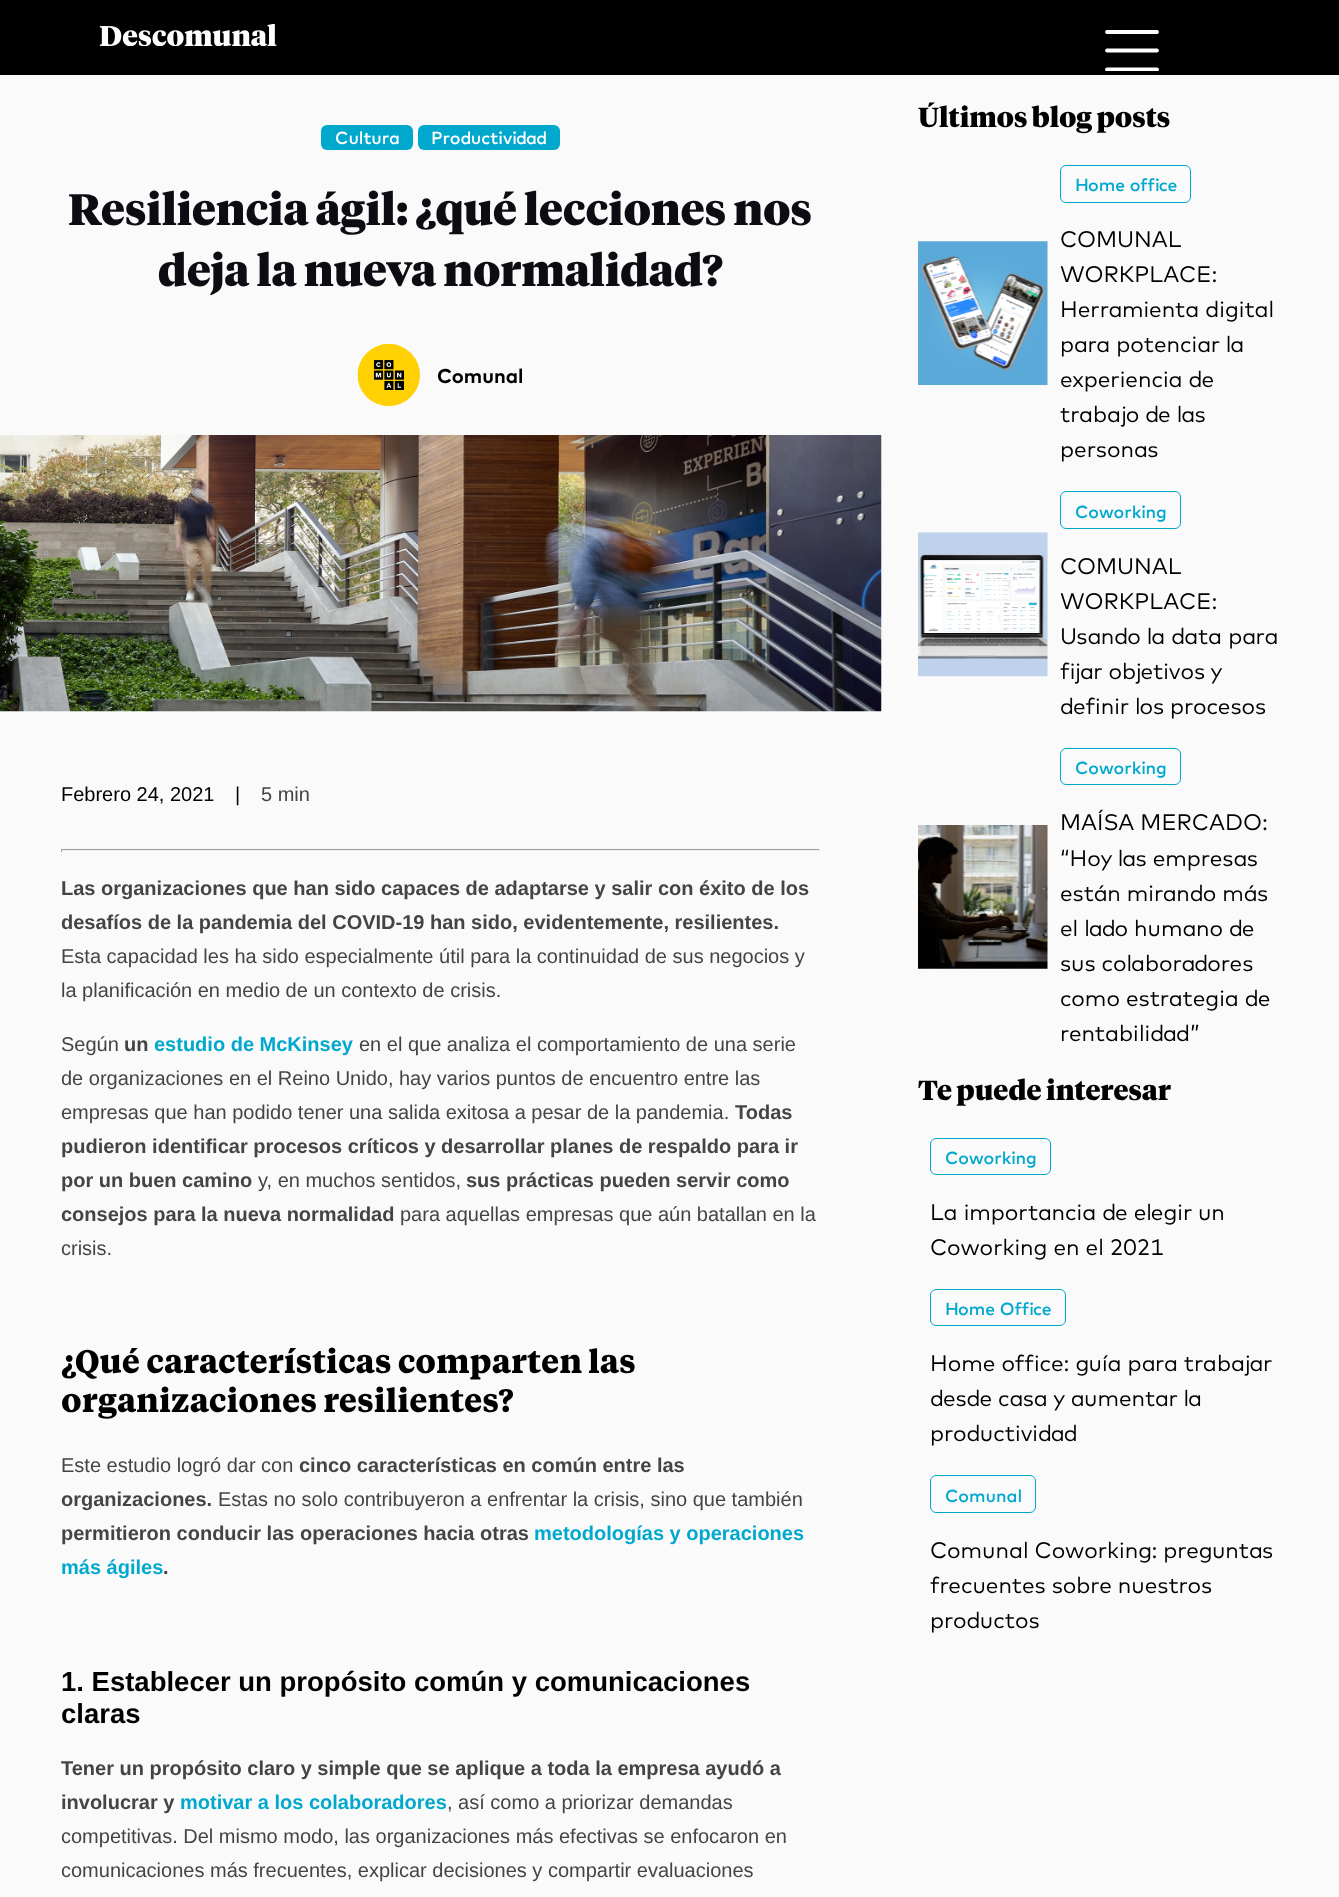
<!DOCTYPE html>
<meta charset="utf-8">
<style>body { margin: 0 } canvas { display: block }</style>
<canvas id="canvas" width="1339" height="1897"></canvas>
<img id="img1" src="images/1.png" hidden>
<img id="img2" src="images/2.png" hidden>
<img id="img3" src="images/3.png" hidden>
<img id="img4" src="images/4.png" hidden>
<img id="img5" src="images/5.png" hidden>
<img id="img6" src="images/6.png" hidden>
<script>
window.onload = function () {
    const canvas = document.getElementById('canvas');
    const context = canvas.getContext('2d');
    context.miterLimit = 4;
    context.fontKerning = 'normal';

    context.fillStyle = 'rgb(250, 250, 250)';
    context.fillRect(0, 0, 1339, 1897);
    context.fillStyle = 'rgb(0, 0, 0)';
    context.fillRect(0, 0, 1339, 75);
    context.drawImage(document.getElementById('img1'), 99, 24, 178, 22);
    context.beginPath();
    context.moveTo(1107, 32);
    context.lineTo(1157, 32);
    context.moveTo(1107, 50.5);
    context.lineTo(1157, 50.5);
    context.strokeStyle = 'rgb(255, 255, 255)';
    context.lineWidth = 3.8;
    context.lineCap = 'round';
    context.stroke();
    context.save();
    context.beginPath();
    context.rect(1105, 30, 54, 41);
    context.clip();
    context.beginPath();
    context.moveTo(1107, 69.5);
    context.lineTo(1157, 69.5);
    context.stroke();
    context.restore();
    context.fillStyle = 'rgb(0, 168, 206)';
    context.beginPath();
    context.roundRect(321, 125, 92, 25, 6);
    context.fill();
    context.beginPath();
    context.roundRect(418, 125, 142, 25, 6);
    context.fill();
    context.drawImage(document.getElementById('img2'), 357, 343, 63, 64);
    context.drawImage(document.getElementById('img3'), 0, 435, 882, 277);
    context.fillStyle = 'rgb(159, 159, 159)';
    context.fillRect(61, 849, 759, 1);
    context.fillStyle = 'rgb(238, 238, 238)';
    context.fillRect(819, 849, 1, 3);
    context.fillRect(61, 850, 759, 1);
    context.fillStyle = 'rgb(159, 159, 159)';
    context.fillRect(61, 849, 1, 3);
    context.drawImage(document.getElementById('img4'), 918, 241, 130, 144);
    context.beginPath();
    context.roundRect(1060.5, 165.5, 130, 37, 5.5);
    context.strokeStyle = 'rgb(0, 168, 206)';
    context.lineWidth = 1;
    context.stroke();
    context.drawImage(document.getElementById('img5'), 918, 532, 130, 145);
    context.beginPath();
    context.roundRect(1060.5, 491.5, 120, 37, 5.5);
    context.stroke();
    context.drawImage(document.getElementById('img6'), 918, 825, 130, 144);
    context.beginPath();
    context.roundRect(1060.5, 748.5, 120, 36, 5.5);
    context.stroke();
    context.beginPath();
    context.roundRect(930.5, 1138.5, 120, 36, 5.5);
    context.stroke();
    context.beginPath();
    context.roundRect(930.5, 1289.5, 135, 36, 5.5);
    context.stroke();
    context.beginPath();
    context.roundRect(930.5, 1475.5, 105, 37, 5.5);
    context.stroke();
    context.font = '500 17.5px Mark';
    context.fillStyle = 'rgb(255, 255, 255)';
    context.fillText('Cultura', 335, 144);
    context.fillText('Productividad', 431, 144);
    context.font = '900 43.75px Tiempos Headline';
    context.fillStyle = 'rgb(12, 13, 18)';
    context.fillText('Resiliencia ágil: ¿qué lecciones nos', 68, 225);
    context.fillText('deja la nueva normalidad?', 158, 286);
    context.font = 'bold 20px Mark';
    context.fillStyle = 'rgb(0, 0, 0)';
    context.fillText('Comunal', 437, 383);
    context.font = '20px Liberation Sans';
    context.fillText('Febrero 24, 2021', 61, 801);
    context.fillText('|', 235, 801);
    context.fillStyle = 'rgb(68, 68, 68)';
    context.fillText('5 min', 261, 801);
    context.font = 'bold 20px Liberation Sans';
    context.fillText('Las organizaciones que han sido capaces de adaptarse y salir con éxito de los', 61, 895);
    context.fillText('desafíos de la pandemia del COVID-19 han sido, evidentemente, resilientes.', 61, 929);
    context.font = '20px Liberation Sans';
    context.fillText('Esta capacidad les ha sido especialmente útil para la continuidad de sus negocios y', 61, 963);
    context.fillText('la planificación en medio de un contexto de crisis.', 61, 997);
    context.fillText('Según', 61, 1051);
    context.font = 'bold 20px Liberation Sans';
    context.fillText('un', 124, 1051);
    context.fillStyle = 'rgb(0, 168, 206)';
    context.fillText('estudio de McKinsey', 154, 1051);
    context.font = '20px Liberation Sans';
    context.fillStyle = 'rgb(68, 68, 68)';
    context.fillText('en el que analiza el comportamiento de una serie', 359, 1051);
    context.fillText('de organizaciones en el Reino Unido, hay varios puntos de encuentro entre las', 61, 1085);
    context.fillText('empresas que han podido tener una salida exitosa a pesar de la pandemia.', 61, 1119);
    context.font = 'bold 20px Liberation Sans';
    context.fillText('Todas', 735, 1119);
    context.fillText('pudieron identificar procesos críticos y desarrollar planes de respaldo para ir', 61, 1153);
    context.fillText('por un buen camino', 61, 1187);
    context.font = '20px Liberation Sans';
    context.fillText('y, en muchos sentidos,', 258, 1187);
    context.font = 'bold 20px Liberation Sans';
    context.fillText('sus prácticas pueden servir como', 466, 1187);
    context.fillText('consejos para la nueva normalidad', 61, 1221);
    context.font = '20px Liberation Sans';
    context.fillText('para aquellas empresas que aún batallan en la', 400, 1221);
    context.fillText('crisis.', 61, 1255);
    context.font = 'bold 32.5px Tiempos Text';
    context.fillStyle = 'rgb(0, 0, 0)';
    context.fillText('¿Qué características comparten las', 61, 1373);
    context.fillText('organizaciones resilientes?', 61, 1412);
    context.font = '20px Liberation Sans';
    context.fillStyle = 'rgb(68, 68, 68)';
    context.fillText('Este estudio logró dar con', 61, 1472);
    context.font = 'bold 20px Liberation Sans';
    context.fillText('cinco características en común entre las', 299, 1472);
    context.fillText('organizaciones.', 61, 1506);
    context.font = '20px Liberation Sans';
    context.fillText('Estas no solo contribuyeron a enfrentar la crisis, sino que también', 218, 1506);
    context.font = 'bold 20px Liberation Sans';
    context.fillText('permitieron conducir las operaciones hacia otras', 61, 1540);
    context.fillStyle = 'rgb(0, 168, 206)';
    context.fillText('metodologías y operaciones', 534, 1540);
    context.fillText('más ágiles', 61, 1574);
    context.fillStyle = 'rgb(68, 68, 68)';
    context.fillText('.', 163, 1574);
    context.font = 'bold 27.5px Liberation Sans';
    context.fillStyle = 'rgb(0, 0, 0)';
    context.fillText('1. Establecer un propósito común y comunicaciones', 61, 1691);
    context.fillText('claras', 61, 1723);
    context.font = 'bold 20px Liberation Sans';
    context.fillStyle = 'rgb(68, 68, 68)';
    context.fillText('Tener un propósito claro y simple que se aplique a toda la empresa ayudó a', 61, 1775);
    context.fillText('involucrar y', 61, 1809);
    context.fillStyle = 'rgb(0, 168, 206)';
    context.fillText('motivar a los colaboradores', 180, 1809);
    context.font = '20px Liberation Sans';
    context.fillStyle = 'rgb(68, 68, 68)';
    context.fillText(', así como a priorizar demandas', 447, 1809);
    context.fillText('competitivas. Del mismo modo, las organizaciones más efectivas se enfocaron en', 61, 1843);
    context.fillText('comunicaciones más frecuentes, explicar decisiones y compartir evaluaciones', 61, 1877);
    context.font = '900 27.5px Tiempos Headline';
    context.fillStyle = 'rgb(0, 0, 0)';
    context.fillText('Últimos blog posts', 918, 127);
    context.font = '500 17.5px Mark';
    context.fillStyle = 'rgb(0, 168, 206)';
    context.fillText('Home office', 1075, 191);
    context.font = '22.5px Mark';
    context.fillStyle = 'rgb(0, 0, 0)';
    context.fillText('COMUNAL', 1060, 247);
    context.fillText('WORKPLACE:', 1060, 282);
    context.fillText('Herramienta digital', 1060, 317);
    context.fillText('para potenciar la', 1060, 352);
    context.fillText('experiencia de', 1060, 387);
    context.fillText('trabajo de las', 1060, 422);
    context.fillText('personas', 1060, 457);
    context.font = '500 17.5px Mark';
    context.fillStyle = 'rgb(0, 168, 206)';
    context.fillText('Coworking', 1075, 518);
    context.font = '22.5px Mark';
    context.fillStyle = 'rgb(0, 0, 0)';
    context.fillText('COMUNAL', 1060, 574);
    context.fillText('WORKPLACE:', 1060, 609);
    context.fillText('Usando la data para', 1060, 644);
    context.fillText('fijar objetivos y', 1060, 679);
    context.fillText('definir los procesos', 1060, 714);
    context.font = '500 17.5px Mark';
    context.fillStyle = 'rgb(0, 168, 206)';
    context.fillText('Coworking', 1075, 774);
    context.font = '22.5px Mark';
    context.fillStyle = 'rgb(0, 0, 0)';
    context.fillText('MAÍSA MERCADO:', 1060, 830);
    context.fillText('“Hoy las empresas', 1060, 866);
    context.fillText('están mirando más', 1060, 901);
    context.fillText('el lado humano de', 1060, 936);
    context.fillText('sus colaboradores', 1060, 971);
    context.fillText('como estrategia de', 1060, 1006);
    context.fillText('rentabilidad”', 1060, 1041);
    context.font = '900 27.5px Tiempos Headline';
    context.fillText('Te puede interesar', 918, 1100);
    context.font = '500 17.5px Mark';
    context.fillStyle = 'rgb(0, 168, 206)';
    context.fillText('Coworking', 945, 1164);
    context.font = '22.5px Mark';
    context.fillStyle = 'rgb(0, 0, 0)';
    context.fillText('La importancia de elegir un', 930, 1220);
    context.fillText('Coworking en el 2021', 930, 1255);
    context.font = '500 17.5px Mark';
    context.fillStyle = 'rgb(0, 168, 206)';
    context.fillText('Home Office', 945, 1315);
    context.font = '22.5px Mark';
    context.fillStyle = 'rgb(0, 0, 0)';
    context.fillText('Home office: guía para trabajar', 930, 1371);
    context.fillText('desde casa y aumentar la', 930, 1406);
    context.fillText('productividad', 930, 1441);
    context.font = '500 17.5px Mark';
    context.fillStyle = 'rgb(0, 168, 206)';
    context.fillText('Comunal', 945, 1502);
    context.font = '22.5px Mark';
    context.fillStyle = 'rgb(0, 0, 0)';
    context.fillText('Comunal Coworking: preguntas', 930, 1558);
    context.fillText('frecuentes sobre nuestros', 930, 1593);
    context.fillText('productos', 930, 1628);
};
</script>
